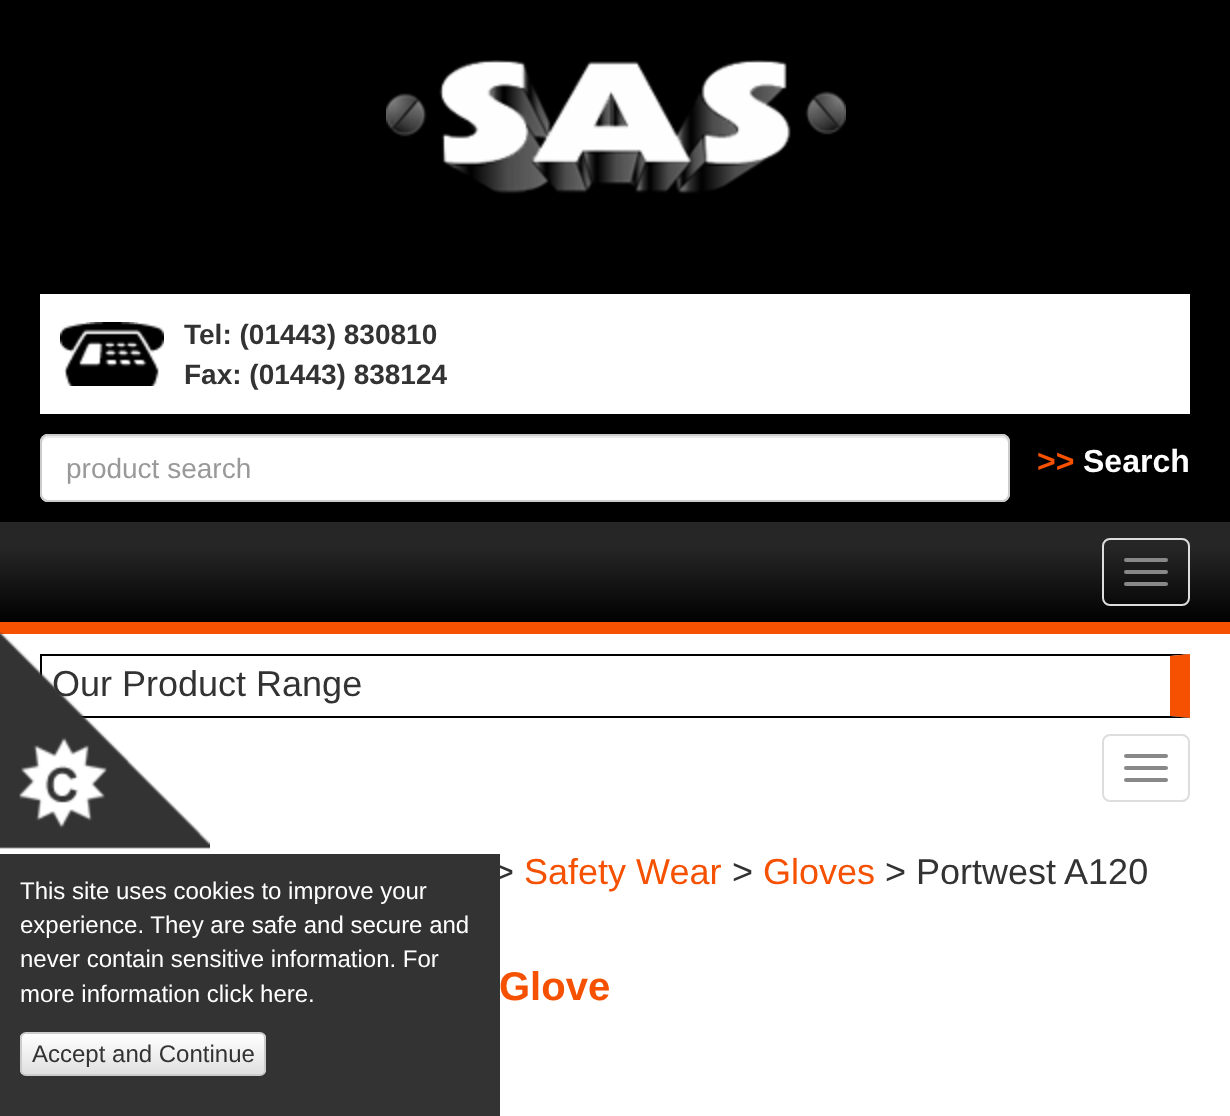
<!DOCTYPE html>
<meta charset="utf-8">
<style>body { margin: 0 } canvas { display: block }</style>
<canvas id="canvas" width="1230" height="1116"></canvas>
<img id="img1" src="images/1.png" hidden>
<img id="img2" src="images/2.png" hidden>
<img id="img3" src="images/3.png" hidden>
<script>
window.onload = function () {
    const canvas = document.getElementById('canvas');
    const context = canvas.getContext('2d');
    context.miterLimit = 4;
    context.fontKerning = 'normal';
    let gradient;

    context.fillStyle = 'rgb(255, 255, 255)';
    context.fillRect(0, 0, 1230, 1116);
    context.fillStyle = 'rgb(0, 0, 0)';
    context.fillRect(0, 0, 1230, 522);
    context.drawImage(document.getElementById('img1'), 386, 60, 460, 134);
    context.fillStyle = 'rgb(255, 255, 255)';
    context.fillRect(40, 294, 1150, 120);
    context.drawImage(document.getElementById('img2'), 60, 322, 104, 64);
    context.beginPath();
    context.roundRect(40, 434, 970, 68, 8);
    context.fill();
    context.fillStyle = 'rgb(236, 236, 236)';
    context.beginPath();
    context.moveTo(48, 438);
    context.lineTo(1002, 438);
    context.bezierCurveTo(1005, 438, 1008, 441, 1008, 444);
    context.lineTo(1008, 442);
    context.bezierCurveTo(1008, 439, 1005, 436, 1002, 436);
    context.lineTo(48, 436);
    context.bezierCurveTo(45, 436, 42, 439, 42, 442);
    context.lineTo(42, 444);
    context.bezierCurveTo(42, 441, 45, 438, 48, 438);
    context.closePath();
    context.fill();
    context.beginPath();
    context.roundRect(41, 435, 968, 66, 7);
    context.strokeStyle = 'rgb(204, 204, 204)';
    context.lineWidth = 2;
    context.stroke();
    gradient = context.createLinearGradient(615, 522, 615, 622);
    gradient.addColorStop(0.25, 'rgb(38, 38, 38)');
    gradient.addColorStop(1, 'rgb(1, 1, 1)');
    context.fillStyle = gradient;
    context.fillRect(0, 522, 1230, 100);
    context.fillStyle = 'rgb(245, 81, 0)';
    context.fillRect(0, 622, 1230, 12);
    context.beginPath();
    context.roundRect(1103, 539, 86, 66, 7);
    context.strokeStyle = 'rgb(221, 221, 221)';
    context.stroke();
    context.fillStyle = 'rgb(136, 136, 136)';
    context.beginPath();
    context.roundRect(1124, 558, 44, 4, 2);
    context.fill();
    context.beginPath();
    context.roundRect(1124, 570, 44, 4, 2);
    context.fill();
    context.beginPath();
    context.roundRect(1124, 582, 44, 4, 2);
    context.fill();
    context.fillStyle = 'rgb(0, 0, 0)';
    context.beginPath();
    context.moveTo(40, 654);
    context.lineTo(1190, 654);
    context.lineTo(1170, 656);
    context.lineTo(42, 656);
    context.closePath();
    context.fill();
    context.fillStyle = 'rgb(245, 81, 0)';
    context.beginPath();
    context.moveTo(1190, 654);
    context.lineTo(1190, 718);
    context.lineTo(1170, 716);
    context.lineTo(1170, 656);
    context.closePath();
    context.fill();
    context.fillStyle = 'rgb(0, 0, 0)';
    context.beginPath();
    context.moveTo(1190, 718);
    context.lineTo(40, 718);
    context.lineTo(42, 716);
    context.lineTo(1170, 716);
    context.closePath();
    context.fill();
    context.fillRect(40, 654, 2, 24);
    context.beginPath();
    context.roundRect(1103, 735, 86, 66, 7);
    context.stroke();
    context.fillStyle = 'rgb(136, 136, 136)';
    context.beginPath();
    context.roundRect(1124, 754, 44, 4, 2);
    context.fill();
    context.beginPath();
    context.roundRect(1124, 766, 44, 4, 2);
    context.fill();
    context.beginPath();
    context.roundRect(1124, 778, 44, 4, 2);
    context.fill();
    context.fillStyle = 'rgb(51, 51, 51)';
    context.fillRect(0, 854, 500, 262);
    context.save();
    context.beginPath();
    context.roundRect(20, 1032, 246, 44, 6);
    context.clip();
    gradient = context.createLinearGradient(143, 1034, 143, 1074);
    gradient.addColorStop(0, 'rgb(255, 255, 255)');
    gradient.addColorStop(1, 'rgb(224, 224, 224)');
    context.fillStyle = gradient;
    context.fillRect(20, 1034, 246, 40);
    context.restore();
    context.beginPath();
    context.roundRect(21, 1033, 244, 42, 5);
    context.strokeStyle = 'rgb(204, 204, 204)';
    context.stroke();
    context.font = 'bold 28px Liberation Sans';
    context.fillText('Tel: (01443) 830810', 184, 344);
    context.fillText('Fax: (01443) 838124', 184, 384);
    context.font = '28px Liberation Sans';
    context.fillStyle = 'rgb(153, 153, 153)';
    context.fillText('product search', 66, 478);
    context.font = 'bold 32px Liberation Sans';
    context.fillStyle = 'rgb(245, 81, 0)';
    context.fillText('>>', 1037, 472);
    context.fillStyle = 'rgb(255, 255, 255)';
    context.fillText('Search', 1083, 472);
    context.font = '36px Liberation Sans';
    context.fillStyle = 'rgb(51, 51, 51)';
    context.fillText('Our Product Range', 52, 696);
    context.fillText('>', 493, 884);
    context.fillStyle = 'rgb(245, 81, 0)';
    context.fillText('Safety Wear', 524, 884);
    context.fillStyle = 'rgb(51, 51, 51)';
    context.fillText('>', 732, 884);
    context.fillStyle = 'rgb(245, 81, 0)';
    context.fillText('Gloves', 763, 884);
    context.fillStyle = 'rgb(51, 51, 51)';
    context.fillText('> Portwest A120', 885, 884);
    context.font = 'bold 40px Liberation Sans';
    context.fillStyle = 'rgb(245, 81, 0)';
    context.fillText('Glove', 499, 1000);
    context.drawImage(document.getElementById('img3'), 0, 631, 210, 218);
    context.font = '24px Liberation Sans';
    context.fillStyle = 'rgb(255, 255, 255)';
    context.fillText('This site uses cookies to improve your', 20, 899);
    context.fillText('experience. They are safe and secure and', 20, 933);
    context.fillText('never contain sensitive information. For', 20, 967);
    context.fillText('more information click here.', 20, 1002);
    context.fillStyle = 'rgb(51, 51, 51)';
    context.fillText('Accept and Continue', 32, 1062);
};
</script>
